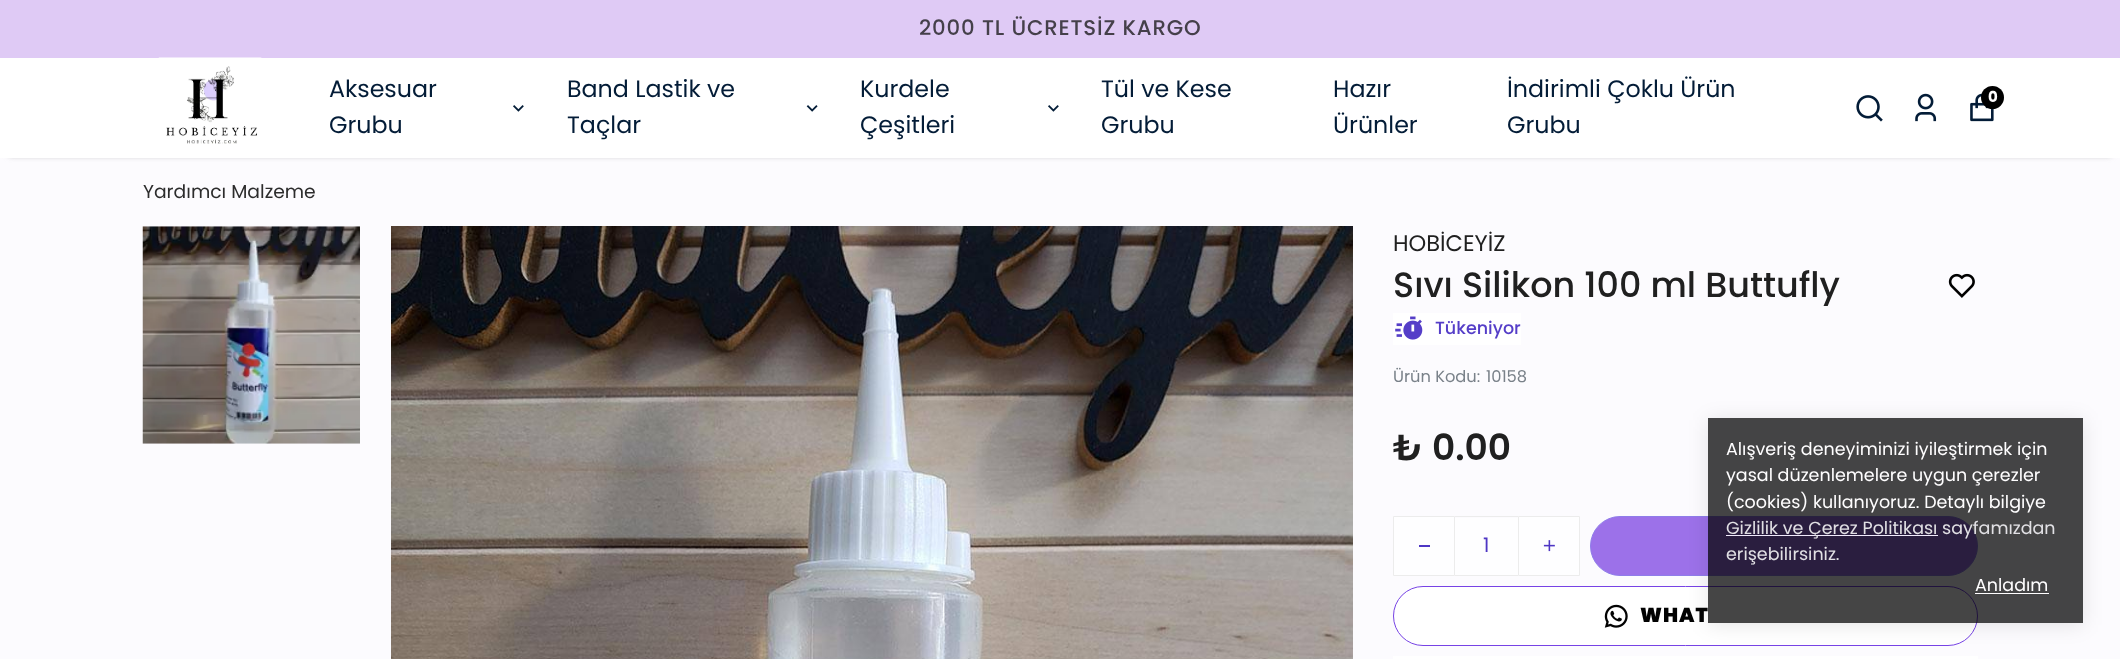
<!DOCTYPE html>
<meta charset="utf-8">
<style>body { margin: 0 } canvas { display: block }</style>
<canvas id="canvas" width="2120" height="659"></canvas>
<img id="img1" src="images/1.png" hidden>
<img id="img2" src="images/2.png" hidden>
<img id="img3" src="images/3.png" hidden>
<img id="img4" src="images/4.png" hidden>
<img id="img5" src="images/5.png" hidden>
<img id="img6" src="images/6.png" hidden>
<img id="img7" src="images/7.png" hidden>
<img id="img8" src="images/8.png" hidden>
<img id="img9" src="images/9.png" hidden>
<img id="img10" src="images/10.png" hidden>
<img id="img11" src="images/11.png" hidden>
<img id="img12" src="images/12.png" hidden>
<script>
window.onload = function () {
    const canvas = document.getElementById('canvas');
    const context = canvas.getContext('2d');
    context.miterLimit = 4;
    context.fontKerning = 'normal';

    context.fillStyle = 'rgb(252, 251, 254)';
    context.fillRect(0, 0, 2120, 659);
    context.fillStyle = 'rgb(223, 202, 245)';
    context.fillRect(0, 0, 2120, 58);
    context.fillStyle = 'rgb(152, 152, 152)';
    context.filter = 'blur(3px)';
    context.beginPath();
    context.rect(9, 73, 2102, 82);
    context.fill();
    context.filter = 'none';
    context.fillStyle = 'rgb(255, 255, 255)';
    context.fillRect(0, 58, 2120, 100);
    context.drawImage(document.getElementById('img1'), 158, 57, 104, 87);
    context.drawImage(document.getElementById('img2'), 513, 105, 11, 7);
    context.drawImage(document.getElementById('img3'), 806, 105, 12, 7);
    context.drawImage(document.getElementById('img2'), 1048, 105, 11, 7);
    context.drawImage(document.getElementById('img4'), 1856, 95, 27, 27);
    context.drawImage(document.getElementById('img5'), 1915, 93, 22, 29);
    context.drawImage(document.getElementById('img6'), 1970, 93, 24, 29);
    context.fillStyle = 'rgb(0, 0, 0)';
    context.beginPath();
    context.arc(1992.5, 97.5, 11.5, 0, 2 * Math.PI);
    context.fill();
    context.fillStyle = 'rgb(156, 113, 233)';
    context.beginPath();
    context.roundRect(1590.5, 516.5, 387, 59, 29.5);
    context.fill();
    context.strokeStyle = 'rgb(143, 125, 233)';
    context.stroke();
    context.fillStyle = 'rgb(255, 255, 255)';
    context.beginPath();
    context.roundRect(1393.5, 586.5, 584, 59, 29.5);
    context.fill();
    context.strokeStyle = 'rgb(119, 67, 229)';
    context.stroke();
    context.save();
    context.beginPath();
    context.moveTo(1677, 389);
    context.lineTo(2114, 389);
    context.lineTo(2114, 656);
    context.lineTo(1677, 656);
    context.closePath();
    context.moveTo(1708, 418);
    context.lineTo(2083, 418);
    context.lineTo(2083, 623);
    context.lineTo(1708, 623);
    context.closePath();
    context.clip('evenodd');
    context.fillStyle = 'rgba(0, 0, 0, 0.1)';
    context.filter = 'blur(10px)';
    context.beginPath();
    context.rect(1708, 420, 375, 205);
    context.fill();
    context.filter = 'none';
    context.restore();
    context.drawImage(document.getElementById('img7'), 142, 226, 218, 218);
    context.drawImage(document.getElementById('img8'), 391, 226, 962, 433);
    context.fillRect(1393, 313, 128, 32);
    context.drawImage(document.getElementById('img9'), 1395, 316, 28, 24);
    context.drawImage(document.getElementById('img10'), 1948, 273, 27, 25);
    context.fillStyle = 'rgb(254, 254, 255)';
    context.beginPath();
    context.rect(1393.5, 516.5, 61, 59);
    context.fill();
    context.strokeStyle = 'rgb(236, 236, 236)';
    context.stroke();
    context.fillStyle = 'rgb(78, 54, 196)';
    context.fillRect(1419, 545, 11, 2);
    context.fillStyle = 'rgb(254, 254, 255)';
    context.fillRect(1455, 518, 63, 57);
    context.fillStyle = 'rgb(236, 236, 236)';
    context.fillRect(1455, 516, 63, 1);
    context.fillRect(1455, 575, 63, 1);
    context.fillStyle = 'rgb(254, 254, 255)';
    context.beginPath();
    context.rect(1518.5, 516.5, 61, 59);
    context.fill();
    context.stroke();
    context.drawImage(document.getElementById('img11'), 1543, 540, 12, 12);
    context.drawImage(document.getElementById('img12'), 1604, 604, 24, 24);
    context.fillStyle = 'rgb(255, 255, 255)';
    context.fillRect(1393, 656, 585, 3);
    context.letterSpacing = '0.85px';
    context.font = '500 21.25px Poppins';
    context.fillStyle = 'rgb(69, 64, 74)';
    context.fillText('2000 TL ÜCRETSİZ KARGO', 919, 35);
    context.letterSpacing = '0px';
    context.font = '23.75px Poppins';
    context.fillStyle = 'rgb(3, 28, 55)';
    context.fillText('Aksesuar', 329, 97);
    context.fillText('Grubu', 329, 133);
    context.fillText('Band Lastik ve', 567, 97);
    context.fillText('Taçlar', 567, 133);
    context.fillText('Kurdele', 860, 97);
    context.fillText('Çeşitleri', 860, 133);
    context.fillText('Tül ve Kese', 1101, 97);
    context.fillText('Grubu', 1101, 133);
    context.fillText('Hazır', 1333, 97);
    context.fillText('Ürünler', 1333, 133);
    context.fillText('İndirimli Çoklu Ürün', 1507, 97);
    context.fillText('Grubu', 1507, 133);
    context.font = 'bold 15px Poppins';
    context.fillStyle = 'rgb(255, 254, 255)';
    context.fillText('0', 1988, 102);
    context.font = '18.75px Poppins';
    context.fillStyle = 'rgb(44, 44, 44)';
    context.fillText('Yardımcı Malzeme', 143, 198);
    context.font = '22.5px Poppins';
    context.fillStyle = 'rgb(32, 32, 32)';
    context.fillText('HOBİCEYİZ', 1393, 251);
    context.font = '500 35px Poppins';
    context.fillText('Sıvı Silikon 100 ml Buttufly', 1393, 297);
    context.font = '500 17.5px Poppins';
    context.fillStyle = 'rgb(85, 62, 200)';
    context.fillText('Tükeniyor', 1435, 334);
    context.font = '16.25px Poppins';
    context.fillStyle = 'rgb(121, 129, 137)';
    context.fillText('Ürün Kodu:', 1393, 382);
    context.fillText('10158', 1486, 382);
    context.font = '600 36px Poppins';
    context.fillStyle = 'rgb(32, 32, 32)';
    context.fillText('₺ 0.00', 1393, 460);
    context.font = '20px Poppins';
    context.fillStyle = 'rgb(78, 54, 196)';
    context.fillText('1', 1483, 552);
    context.letterSpacing = '1px';
    context.font = '900 20px Poppins';
    context.fillStyle = 'rgb(2, 2, 2)';
    context.fillText('WHAT', 1640, 622);
    context.fillStyle = 'rgba(0, 0, 0, 0.73)';
    context.fillRect(1708, 418, 375, 205);
    context.letterSpacing = '0px';
    context.font = '17.5px Poppins';
    context.fillStyle = 'rgb(255, 254, 255)';
    context.fillText('Anladım', 1975, 591);
    context.fillRect(1975, 593, 74, 1);
    context.fillStyle = 'rgb(225, 224, 228)';
    context.fillText('erişebilirsiniz.', 1726, 560);
    context.fillText('sayfamızdan', 1942, 534);
    context.fillStyle = 'rgb(241, 235, 252)';
    context.fillRect(1726, 535, 212, 1);
    context.fillStyle = 'rgb(225, 224, 228)';
    context.fillText('Gizlilik ve Çerez Politikası', 1726, 534);
    context.fillStyle = 'rgb(255, 254, 255)';
    context.fillText('(cookies) kullanıyoruz. Detaylı bilgiye', 1726, 508);
    context.fillText('yasal düzenlemelere uygun çerezler', 1726, 481);
    context.fillText('Alışveriş deneyiminizi iyileştirmek için', 1726, 455);
};
</script>
